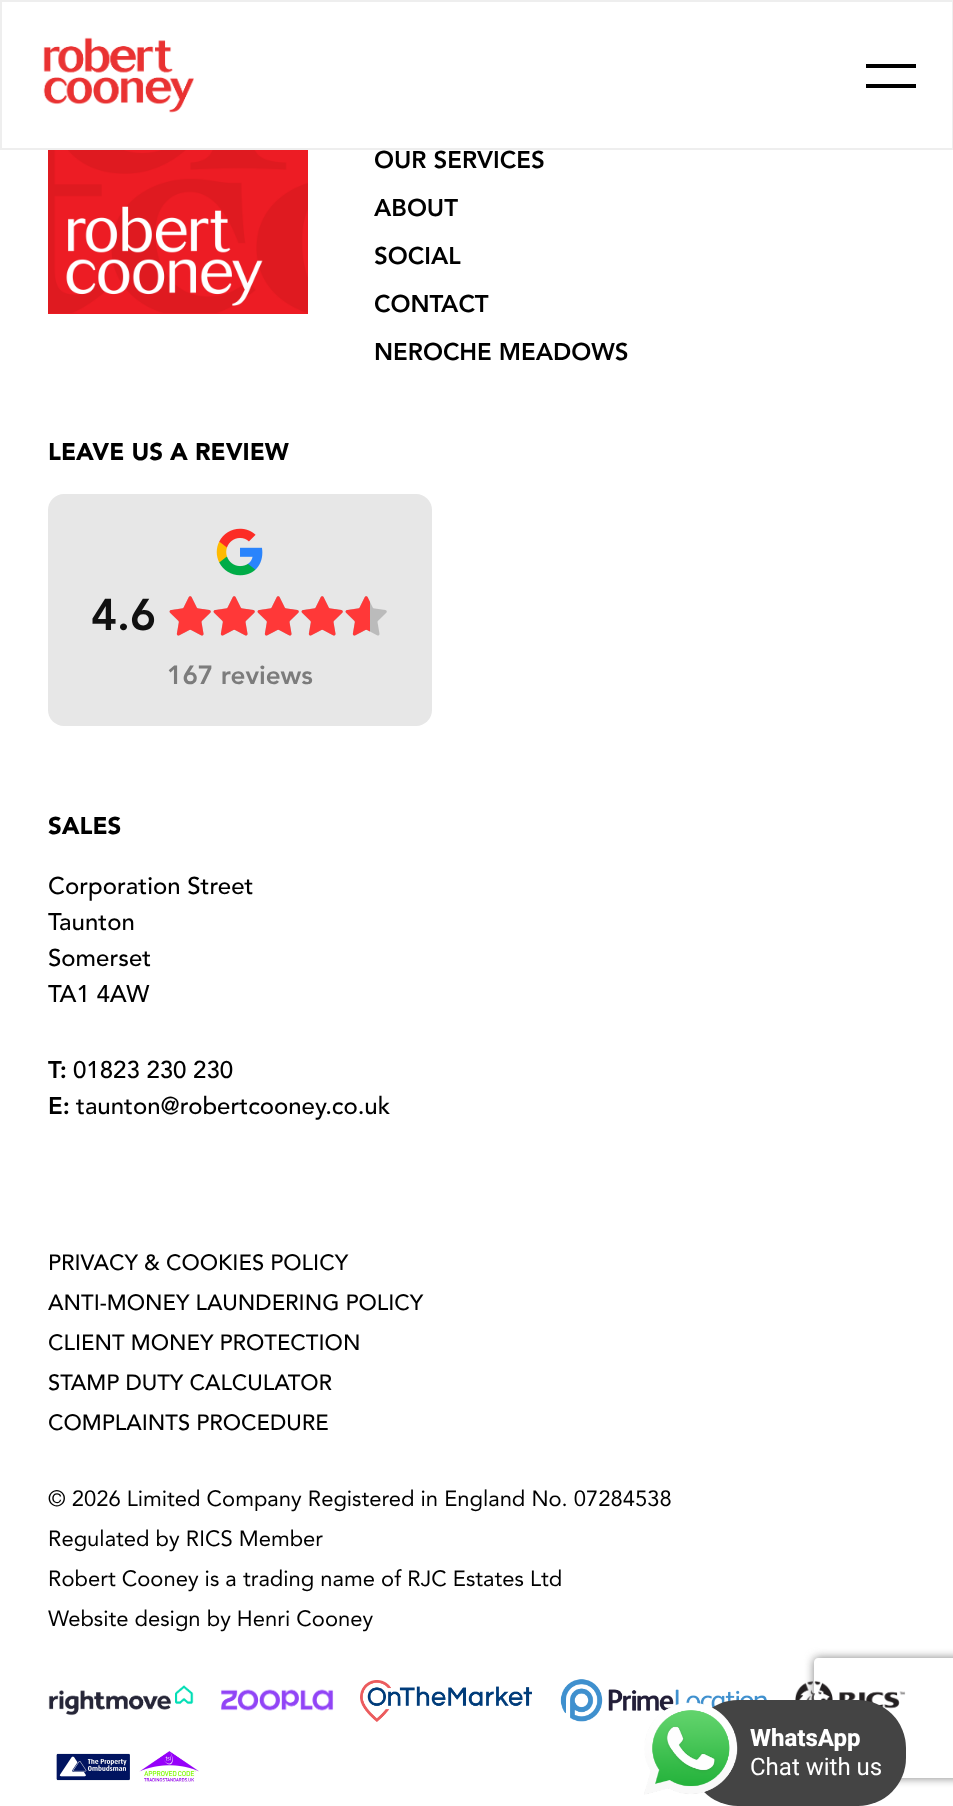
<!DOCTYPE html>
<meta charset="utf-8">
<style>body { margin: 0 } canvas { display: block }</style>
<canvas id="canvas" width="953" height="1806"></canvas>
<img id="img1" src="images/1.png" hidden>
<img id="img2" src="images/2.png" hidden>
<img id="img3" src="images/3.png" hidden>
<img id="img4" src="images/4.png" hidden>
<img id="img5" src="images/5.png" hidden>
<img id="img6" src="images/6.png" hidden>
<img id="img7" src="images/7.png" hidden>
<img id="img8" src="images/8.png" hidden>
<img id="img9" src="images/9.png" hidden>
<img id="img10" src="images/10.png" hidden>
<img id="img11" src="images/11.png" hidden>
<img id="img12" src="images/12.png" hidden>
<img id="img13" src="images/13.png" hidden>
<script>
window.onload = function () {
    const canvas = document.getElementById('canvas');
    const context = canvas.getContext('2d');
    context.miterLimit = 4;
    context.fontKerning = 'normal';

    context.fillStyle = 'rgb(255, 255, 255)';
    context.fillRect(0, 0, 953, 1806);
    context.strokeStyle = 'rgb(238, 238, 238)';
    context.lineWidth = 2;
    context.strokeRect(1, 1, 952, 148);
    context.drawImage(document.getElementById('img1'), 43, 37, 151, 76);
    context.fillStyle = 'rgb(0, 0, 0)';
    context.fillRect(866, 64, 50, 4);
    context.fillRect(866, 84, 50, 4);
    context.drawImage(document.getElementById('img2'), 48, 150, 260, 164);
    context.fillStyle = 'rgb(231, 231, 231)';
    context.beginPath();
    context.roundRect(48, 494, 384, 232, 16);
    context.fill();
    context.drawImage(document.getElementById('img3'), 216, 528, 47, 48);
    context.drawImage(document.getElementById('img4'), 169, 596, 42, 40);
    context.drawImage(document.getElementById('img5'), 169, 596, 42, 40);
    context.drawImage(document.getElementById('img4'), 213, 596, 42, 40);
    context.drawImage(document.getElementById('img5'), 213, 596, 42, 40);
    context.drawImage(document.getElementById('img4'), 257, 596, 42, 40);
    context.drawImage(document.getElementById('img5'), 257, 596, 42, 40);
    context.drawImage(document.getElementById('img4'), 301, 596, 42, 40);
    context.drawImage(document.getElementById('img5'), 301, 596, 42, 40);
    context.drawImage(document.getElementById('img4'), 345, 596, 42, 40);
    context.drawImage(document.getElementById('img6'), 345, 596, 25, 40);
    context.drawImage(document.getElementById('img7'), 48, 1685, 146, 31);
    context.drawImage(document.getElementById('img8'), 221, 1689, 113, 22);
    context.drawImage(document.getElementById('img9'), 360, 1680, 172, 42);
    context.drawImage(document.getElementById('img10'), 560, 1679, 207, 43);
    context.drawImage(document.getElementById('img11'), 795, 1680, 111, 29);
    context.drawImage(document.getElementById('img12'), 56, 1751, 143, 31);
    context.save();
    context.beginPath();
    context.moveTo(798, 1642);
    context.lineTo(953, 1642);
    context.lineTo(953, 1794);
    context.lineTo(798, 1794);
    context.closePath();
    context.moveTo(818, 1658);
    context.lineTo(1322, 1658);
    context.bezierCurveTo(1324, 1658, 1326, 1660, 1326, 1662);
    context.lineTo(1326, 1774);
    context.bezierCurveTo(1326, 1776, 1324, 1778, 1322, 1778);
    context.lineTo(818, 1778);
    context.bezierCurveTo(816, 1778, 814, 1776, 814, 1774);
    context.lineTo(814, 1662);
    context.bezierCurveTo(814, 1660, 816, 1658, 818, 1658);
    context.closePath();
    context.clip('evenodd');
    context.fillStyle = 'rgb(128, 128, 128)';
    context.filter = 'blur(5px)';
    context.beginPath();
    context.roundRect(814, 1658, 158, 120, 4);
    context.fill();
    context.filter = 'none';
    context.restore();
    context.fillStyle = 'rgb(68, 68, 68)';
    context.beginPath();
    context.roundRect(690, 1700, 216, 106, 48);
    context.fill();
    context.drawImage(document.getElementById('img13'), 644, 1702, 94, 93);
    context.font = '900 24px Avenir';
    context.fillStyle = 'rgb(0, 0, 0)';
    context.fillText('OUR SERVICES', 374, 168);
    context.fillText('ABOUT', 374, 216);
    context.fillText('SOCIAL', 374, 264);
    context.fillText('CONTACT', 374, 312);
    context.fillText('NEROCHE MEADOWS', 374, 360);
    context.font = '900 24px "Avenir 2"';
    context.fillText('LEAVE US A REVIEW', 48, 460);
    context.font = '900 44px Avenir';
    context.fillStyle = 'rgb(17, 17, 17)';
    context.fillText('4.6', 91, 630);
    context.font = '900 26px Avenir';
    context.fillStyle = 'rgb(124, 124, 124)';
    context.fillText('167 reviews', 167, 684);
    context.font = '900 24px "Avenir 2"';
    context.fillStyle = 'rgb(0, 0, 0)';
    context.fillText('SALES', 48, 834);
    context.font = '500 24px Avenir';
    context.fillText('Corporation Street', 48, 894);
    context.fillText('Taunton', 48, 930);
    context.fillText('Somerset', 48, 966);
    context.fillText('TA1 4AW', 48, 1002);
    context.font = '900 24px Avenir';
    context.fillText('T:', 48, 1078);
    context.font = '500 24px Avenir';
    context.fillText('01823 230 230', 73, 1078);
    context.font = '900 24px Avenir';
    context.fillText('E:', 48, 1114);
    context.font = '500 24px Avenir';
    context.fillText('taunton@robertcooney.co.uk', 76, 1114);
    context.font = '500 22px Avenir';
    context.fillText('PRIVACY & COOKIES POLICY', 48, 1270);
    context.fillText('ANTI-MONEY LAUNDERING POLICY', 48, 1310);
    context.fillText('CLIENT MONEY PROTECTION', 48, 1350);
    context.fillText('STAMP DUTY CALCULATOR', 48, 1390);
    context.fillText('COMPLAINTS PROCEDURE', 48, 1430);
    context.font = '22px Avenir';
    context.fillText('© 2026 Limited Company Registered in England No. 07284538', 48, 1506);
    context.fillText('Regulated by RICS Member', 48, 1546);
    context.fillText('Robert Cooney is a trading name of RJC Estates Ltd', 48, 1586);
    context.fillText('Website design by Henri Cooney', 48, 1626);
    context.font = '800 24px Roboto';
    context.fillStyle = 'rgb(255, 255, 255)';
    context.fillText('WhatsApp', 750, 1746);
    context.font = '24px Roboto';
    context.fillText('Chat with us', 750, 1775);
};
</script>
